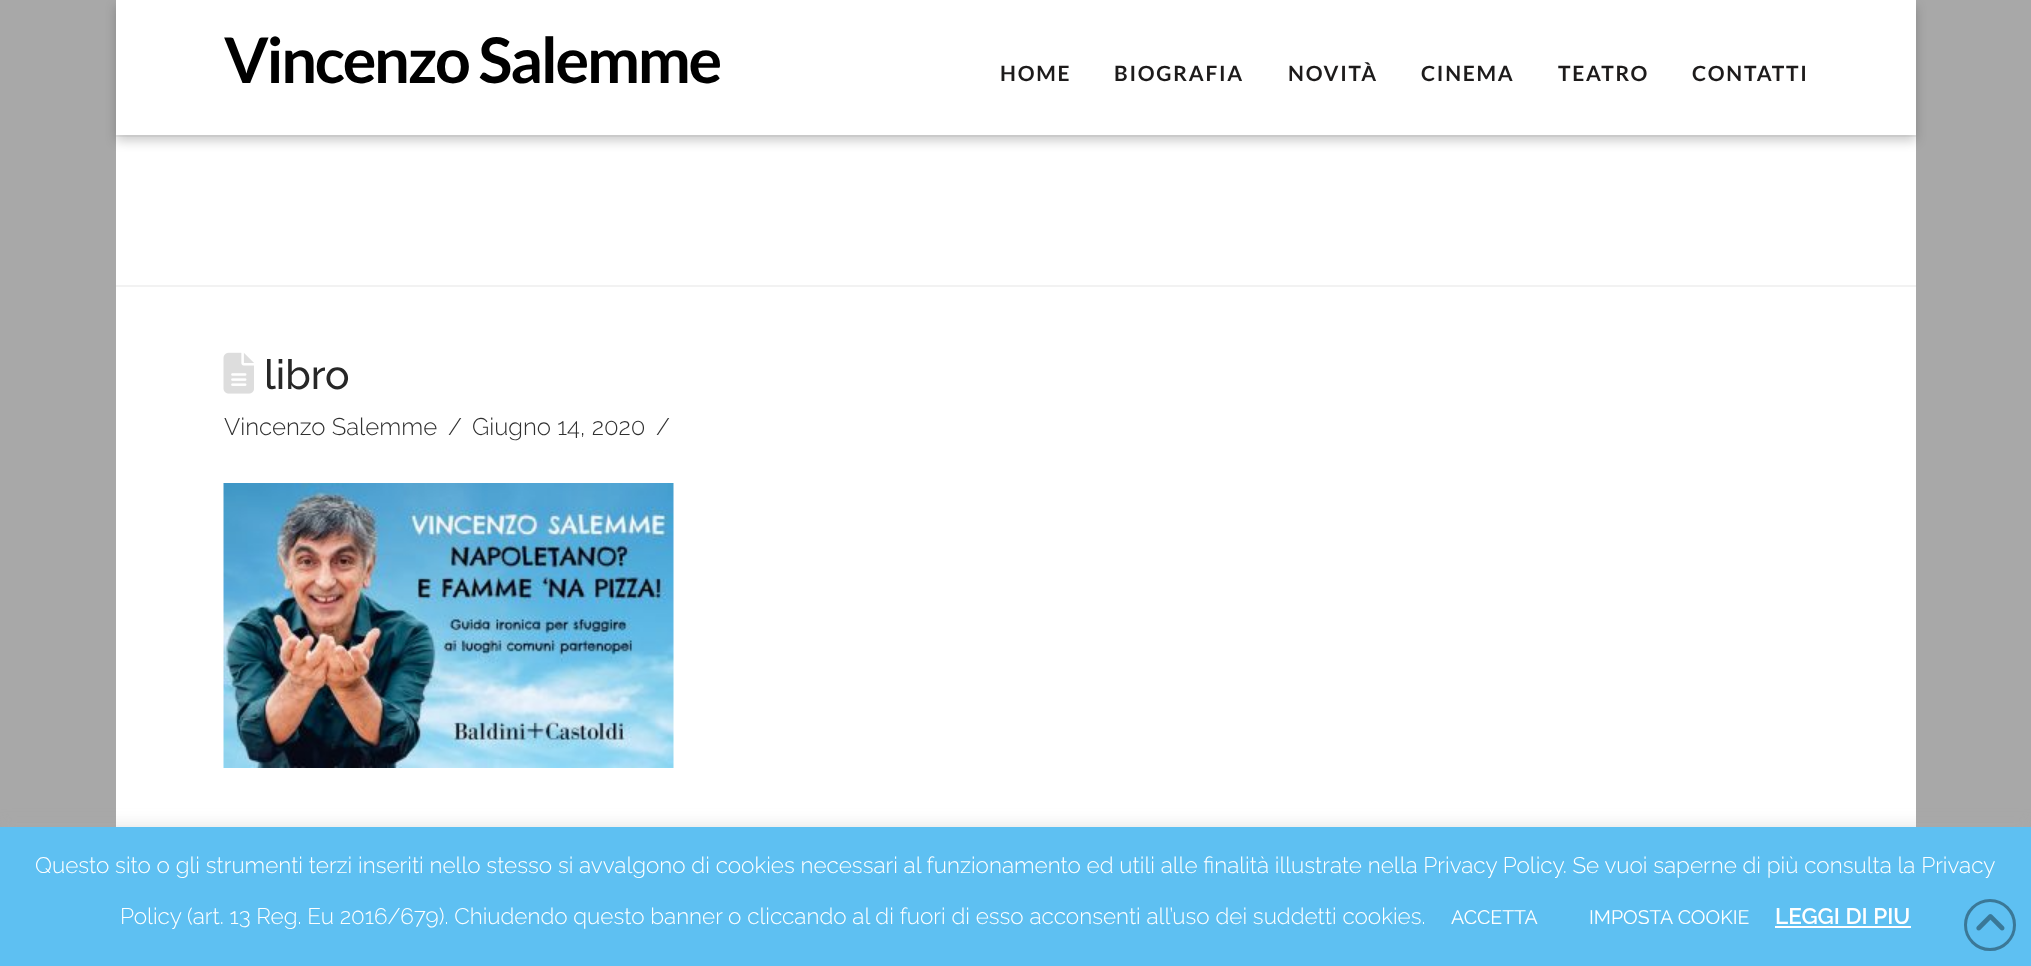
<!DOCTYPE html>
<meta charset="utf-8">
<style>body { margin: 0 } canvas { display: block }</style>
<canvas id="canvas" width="2031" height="966"></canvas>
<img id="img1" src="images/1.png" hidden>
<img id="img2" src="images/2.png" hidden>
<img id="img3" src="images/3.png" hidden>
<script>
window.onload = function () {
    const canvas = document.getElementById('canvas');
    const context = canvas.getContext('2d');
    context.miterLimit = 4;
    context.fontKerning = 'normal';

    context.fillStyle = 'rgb(168, 168, 168)';
    context.fillRect(0, 0, 2031, 966);
    context.fillStyle = 'rgb(255, 255, 255)';
    context.fillRect(116, 137, 1800, 690);
    context.fillStyle = 'rgb(242, 242, 242)';
    context.fillRect(116, 135, 1800, 2);
    context.fillStyle = 'rgba(0, 0, 0, 0.2)';
    context.filter = 'blur(5.5px)';
    context.beginPath();
    context.rect(116, 6, 1800, 135);
    context.fill();
    context.filter = 'none';
    context.fillStyle = 'rgb(255, 255, 255)';
    context.fillRect(116, 0, 1800, 135);
    context.fillStyle = 'rgb(242, 242, 242)';
    context.fillRect(116, 285, 1800, 2);
    context.drawImage(document.getElementById('img1'), 223, 352, 31, 42);
    context.drawImage(document.getElementById('img2'), 223, 483, 451, 285);
    context.fillStyle = 'rgba(172, 171, 171, 0.3)';
    context.filter = 'blur(7.5px)';
    context.beginPath();
    context.rect(0, 825, 2031, 140);
    context.fill();
    context.filter = 'none';
    context.fillStyle = 'rgb(94, 192, 242)';
    context.fillRect(0, 827, 2031, 139);
    context.beginPath();
    context.arc(1990, 925, 24.5, 0, 2 * Math.PI);
    context.strokeStyle = 'rgb(59, 120, 151)';
    context.lineWidth = 3;
    context.stroke();
    context.drawImage(document.getElementById('img3'), 1976, 914, 29, 17);
    context.fillStyle = 'rgb(255, 255, 255)';
    context.fillRect(1775, 926, 136, 2);
    context.letterSpacing = '-2.25px';
    context.font = 'bold 63px Lato';
    context.fillStyle = 'rgb(0, 0, 0)';
    context.fillText('Vincenzo Salemme', 224, 83);
    context.letterSpacing = '1.75px';
    context.font = 'bold 21px Lato';
    context.fillStyle = 'rgb(29, 27, 27)';
    context.fillText('HOME', 1000, 81);
    context.fillText('BIOGRAFIA', 1114, 81);
    context.fillText('NOVITÀ', 1288, 81);
    context.fillText('CINEMA', 1421, 81);
    context.fillText('TEATRO', 1558, 81);
    context.fillText('CONTATTI', 1692, 81);
    context.letterSpacing = '0px';
    context.font = '500 41px Raleway';
    context.fillStyle = 'rgb(39, 39, 39)';
    context.fillText('libro', 264, 389);
    context.font = '300 24px Raleway';
    context.fillStyle = 'rgb(48, 48, 48)';
    context.fillText('Vincenzo Salemme', 224, 435);
    context.fillText('/', 448, 435);
    context.fillText('Giugno 14, 2020', 472, 435);
    context.fillText('/', 656, 435);
    context.font = '300 22.5px Raleway';
    context.fillStyle = 'rgb(255, 255, 255)';
    context.fillText('Questo sito o gli strumenti terzi inseriti nello stesso si avvalgono di cookies necessari al funzionamento ed utili alle finalità illustrate nella Privacy Policy. Se vuoi saperne di più consulta la Privacy', 35, 873);
    context.fillText('Policy (art. 13 Reg. Eu 2016/679). Chiudendo questo banner o cliccando al di fuori di esso acconsenti all’uso dei suddetti cookies.', 120, 924);
    context.font = '19.5px Raleway';
    context.fillText('ACCETTA', 1451, 924);
    context.fillText('IMPOSTA COOKIE', 1589, 924);
    context.font = '600 22.5px Raleway';
    context.fillText('LEGGI DI PIU', 1775, 924);
};
</script>
